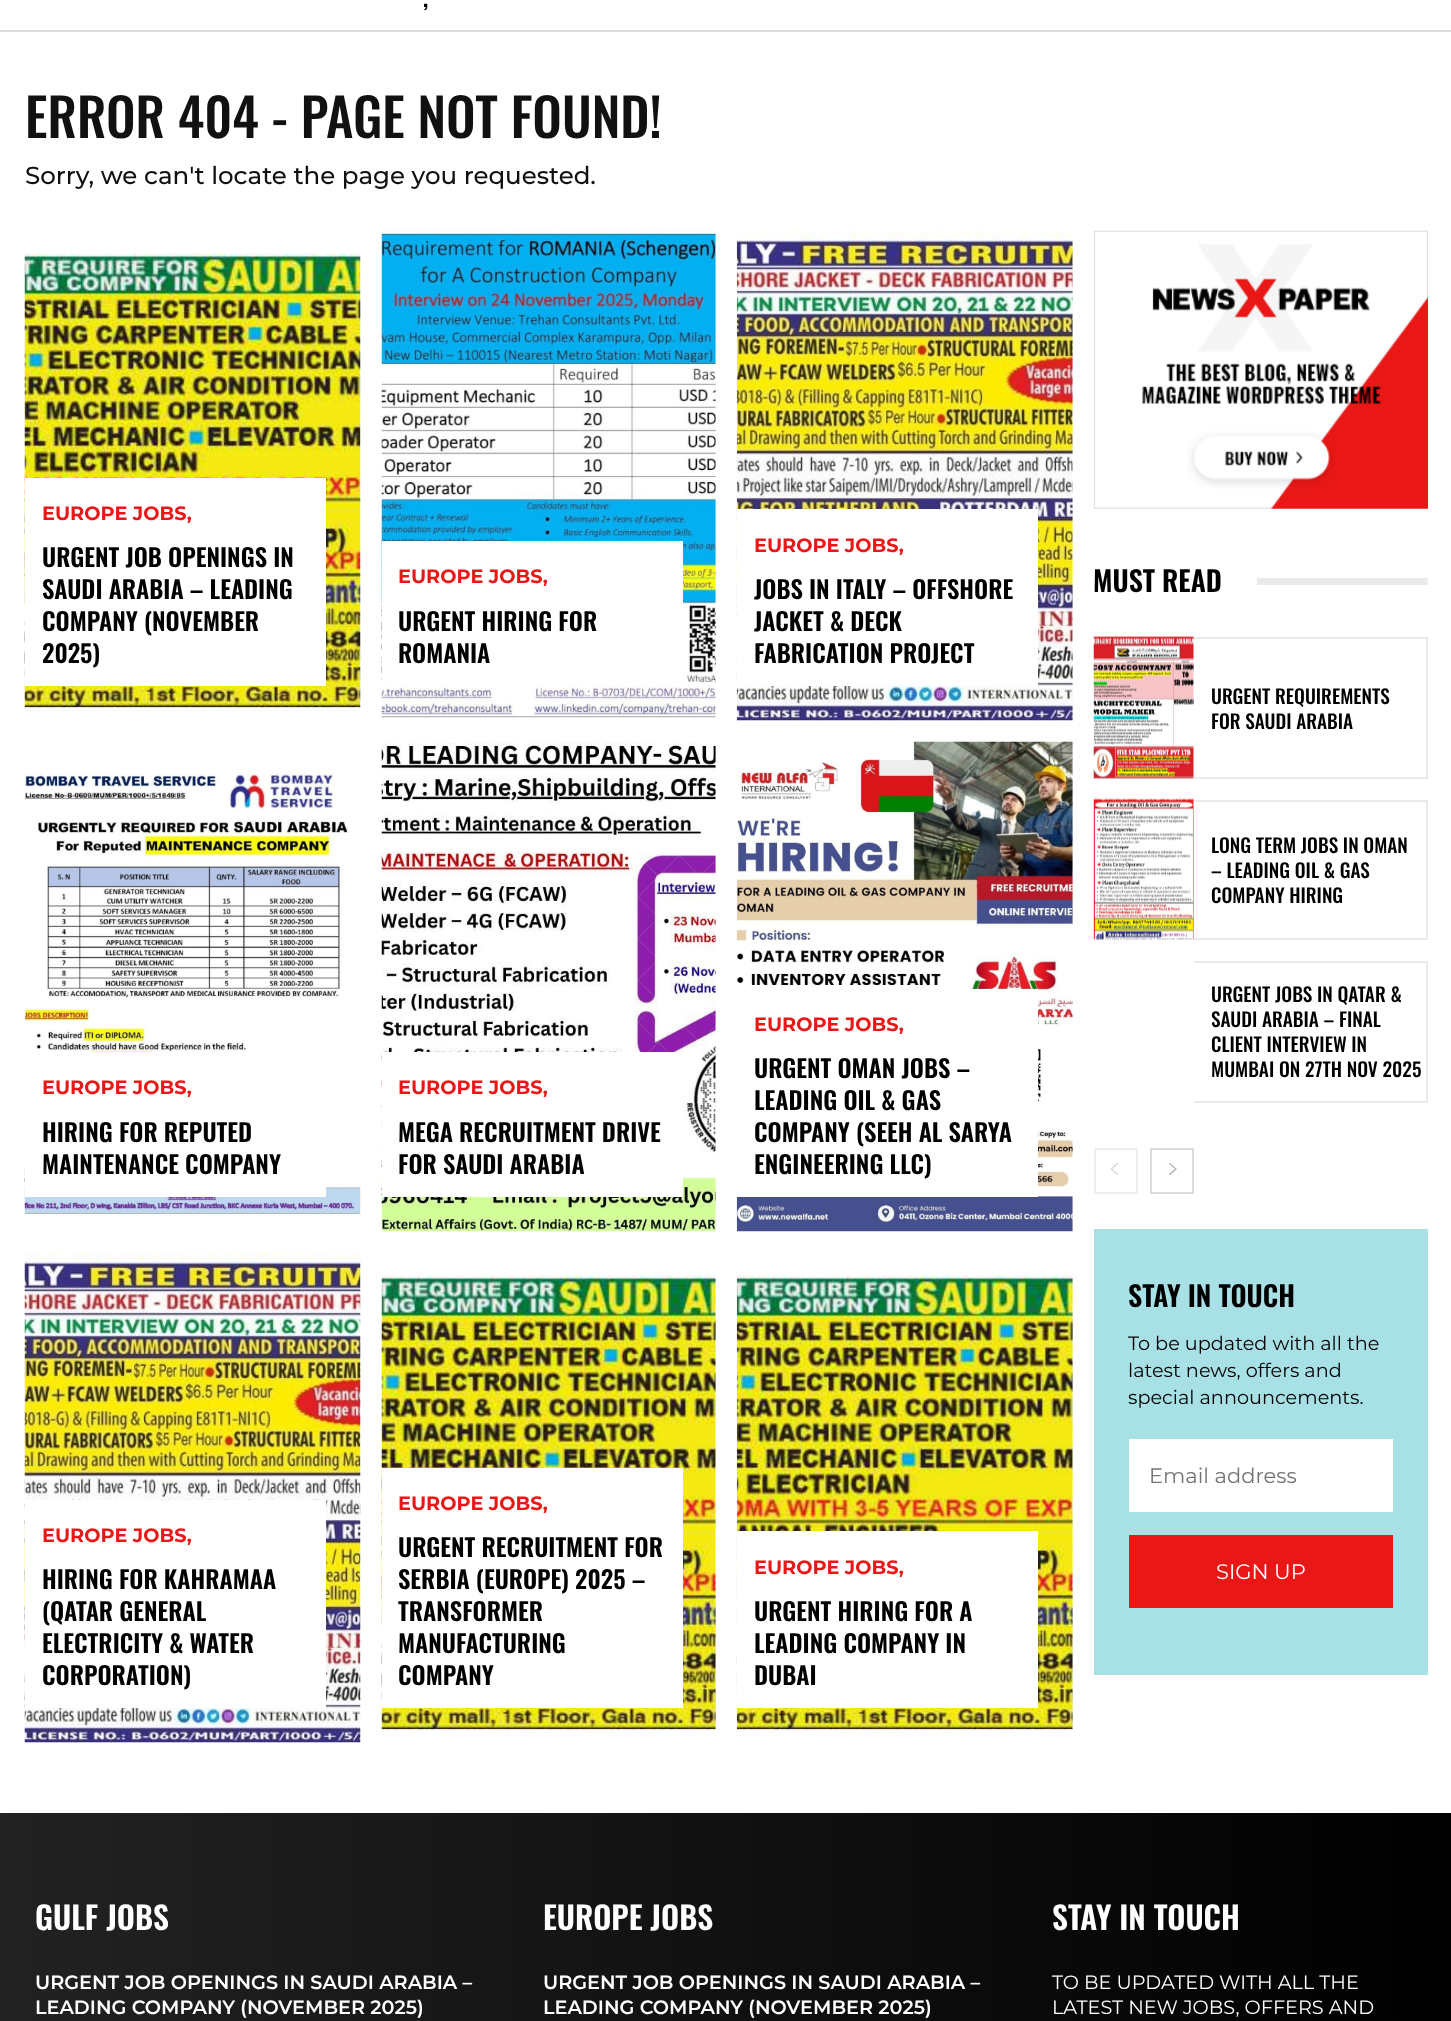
<!DOCTYPE html>
<meta charset="utf-8">
<style>body { margin: 0 } canvas { display: block }</style>
<canvas id="canvas" width="1451" height="2021"></canvas>
<img id="img1" src="images/1.png" hidden>
<img id="img2" src="images/2.png" hidden>
<img id="img3" src="images/3.png" hidden>
<img id="img4" src="images/4.png" hidden>
<img id="img5" src="images/5.png" hidden>
<img id="img6" src="images/6.png" hidden>
<img id="img7" src="images/7.png" hidden>
<img id="img8" src="images/8.png" hidden>
<img id="img9" src="images/9.png" hidden>
<img id="img10" src="images/10.png" hidden>
<img id="img11" src="images/11.png" hidden>
<img id="img12" src="images/12.png" hidden>
<img id="img13" src="images/13.png" hidden>
<img id="img14" src="images/14.png" hidden>
<script>
window.onload = function () {
    const canvas = document.getElementById('canvas');
    const context = canvas.getContext('2d');
    context.miterLimit = 4;
    context.fontKerning = 'normal';
    let gradient;

    context.fillStyle = 'rgb(255, 255, 255)';
    context.fillRect(0, 0, 1451, 2021);
    context.fillStyle = 'rgb(221, 221, 221)';
    context.fillRect(0, 30, 1451, 2);
    context.drawImage(document.getElementById('img1'), 24, 253, 337, 455);
    context.fillStyle = 'rgb(255, 255, 255)';
    context.fillRect(25, 478, 301, 208);
    context.drawImage(document.getElementById('img2'), 24, 770, 337, 447);
    context.fillRect(25, 1052, 301, 145);
    context.drawImage(document.getElementById('img3'), 24, 1252, 337, 491);
    context.fillRect(25, 1500, 301, 208);
    context.drawImage(document.getElementById('img4'), 381, 231, 335, 487);
    context.fillRect(382, 541, 301, 145);
    context.drawImage(document.getElementById('img5'), 381, 742, 335, 490);
    context.fillRect(382, 1052, 301, 145);
    context.drawImage(document.getElementById('img6'), 381, 1275, 335, 455);
    context.fillRect(382, 1468, 301, 240);
    context.drawImage(document.getElementById('img7'), 736, 230, 337, 491);
    context.fillRect(737, 509, 301, 177);
    context.drawImage(document.getElementById('img8'), 736, 741, 337, 491);
    context.fillRect(737, 989, 301, 208);
    context.drawImage(document.getElementById('img9'), 736, 1275, 337, 455);
    context.fillRect(737, 1531, 301, 177);
    context.drawImage(document.getElementById('img10'), 1093, 230, 335, 279);
    context.fillStyle = 'rgb(234, 234, 234)';
    context.fillRect(1257, 578, 171, 7);
    context.drawImage(document.getElementById('img11'), 1093, 636, 101, 143);
    context.fillRect(1194, 637, 234, 2);
    context.fillRect(1426, 637, 2, 142);
    context.fillRect(1194, 777, 234, 2);
    context.drawImage(document.getElementById('img12'), 1093, 798, 101, 142);
    context.fillRect(1194, 800, 234, 2);
    context.fillRect(1426, 800, 2, 140);
    context.fillRect(1194, 938, 234, 2);
    context.fillRect(1194, 961, 234, 2);
    context.fillRect(1426, 961, 2, 142);
    context.fillRect(1194, 1101, 234, 2);
    context.strokeStyle = 'rgb(238, 238, 238)';
    context.lineWidth = 2;
    context.strokeRect(1095, 1149, 42, 44);
    context.drawImage(document.getElementById('img13'), 1110, 1163, 9, 12);
    context.strokeStyle = 'rgb(220, 220, 220)';
    context.strokeRect(1151, 1149, 42, 44);
    context.drawImage(document.getElementById('img14'), 1169, 1163, 8, 13);
    context.fillStyle = 'rgb(167, 224, 229)';
    context.fillRect(1094, 1229, 334, 446);
    context.fillStyle = 'rgb(255, 255, 255)';
    context.fillRect(1129, 1439, 264, 73);
    context.fillStyle = 'rgb(234, 23, 23)';
    context.fillRect(1129, 1535, 264, 73);
    gradient = context.createLinearGradient(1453, 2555, 0, 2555);
    gradient.addColorStop(0, 'rgb(0, 0, 0)');
    gradient.addColorStop(1, 'rgb(34, 34, 34)');
    context.fillStyle = gradient;
    context.fillRect(0, 1813, 1451, 208);
    context.letterSpacing = '1px';
    context.font = '500 24.5px Oswald';
    context.fillStyle = 'rgb(0, 0, 0)';
    context.fillText(',', 423, 7);
    context.letterSpacing = '0px';
    context.font = '500 52.5px Oswald';
    context.fillStyle = 'rgb(17, 17, 17)';
    context.fillText('ERROR 404 - PAGE NOT FOUND!', 25, 138);
    context.font = '500 24.5px Montserrat';
    context.fillText('Sorry, we can\'t locate the page you requested.', 25, 184);
    context.font = 'bold 19.25px Montserrat';
    context.fillStyle = 'rgb(234, 23, 23)';
    context.fillText('EUROPE JOBS,', 42, 520);
    context.font = '600 24.5px Oswald';
    context.fillStyle = 'rgb(0, 0, 0)';
    context.fillText('URGENT JOB OPENINGS IN', 42, 567);
    context.fillText('SAUDI ARABIA – LEADING', 42, 599);
    context.fillText('COMPANY (NOVEMBER', 42, 631);
    context.fillText('2025)', 42, 663);
    context.font = 'bold 19.25px Montserrat';
    context.fillStyle = 'rgb(234, 23, 23)';
    context.fillText('EUROPE JOBS,', 42, 1094);
    context.font = '600 24.5px Oswald';
    context.fillStyle = 'rgb(0, 0, 0)';
    context.fillText('HIRING FOR REPUTED', 42, 1142);
    context.fillText('MAINTENANCE COMPANY', 42, 1174);
    context.font = 'bold 19.25px Montserrat';
    context.fillStyle = 'rgb(234, 23, 23)';
    context.fillText('EUROPE JOBS,', 42, 1542);
    context.font = '600 24.5px Oswald';
    context.fillStyle = 'rgb(0, 0, 0)';
    context.fillText('HIRING FOR KAHRAMAA', 42, 1589);
    context.fillText('(QATAR GENERAL', 42, 1621);
    context.fillText('ELECTRICITY & WATER', 42, 1653);
    context.fillText('CORPORATION)', 42, 1685);
    context.font = 'bold 19.25px Montserrat';
    context.fillStyle = 'rgb(234, 23, 23)';
    context.fillText('EUROPE JOBS,', 398, 583);
    context.font = '600 24.5px Oswald';
    context.fillStyle = 'rgb(0, 0, 0)';
    context.fillText('URGENT HIRING FOR', 398, 631);
    context.fillText('ROMANIA', 398, 663);
    context.font = 'bold 19.25px Montserrat';
    context.fillStyle = 'rgb(234, 23, 23)';
    context.fillText('EUROPE JOBS,', 398, 1094);
    context.font = '600 24.5px Oswald';
    context.fillStyle = 'rgb(0, 0, 0)';
    context.fillText('MEGA RECRUITMENT DRIVE', 398, 1142);
    context.fillText('FOR SAUDI ARABIA', 398, 1174);
    context.font = 'bold 19.25px Montserrat';
    context.fillStyle = 'rgb(234, 23, 23)';
    context.fillText('EUROPE JOBS,', 398, 1510);
    context.font = '600 24.5px Oswald';
    context.fillStyle = 'rgb(0, 0, 0)';
    context.fillText('URGENT RECRUITMENT FOR', 398, 1557);
    context.fillText('SERBIA (EUROPE) 2025 –', 398, 1589);
    context.fillText('TRANSFORMER', 398, 1621);
    context.fillText('MANUFACTURING', 398, 1653);
    context.fillText('COMPANY', 398, 1685);
    context.font = 'bold 19.25px Montserrat';
    context.fillStyle = 'rgb(234, 23, 23)';
    context.fillText('EUROPE JOBS,', 754, 552);
    context.font = '600 24.5px Oswald';
    context.fillStyle = 'rgb(0, 0, 0)';
    context.fillText('JOBS IN ITALY – OFFSHORE', 754, 599);
    context.fillText('JACKET & DECK', 754, 631);
    context.fillText('FABRICATION PROJECT', 754, 663);
    context.font = 'bold 19.25px Montserrat';
    context.fillStyle = 'rgb(234, 23, 23)';
    context.fillText('EUROPE JOBS,', 754, 1031);
    context.font = '600 24.5px Oswald';
    context.fillStyle = 'rgb(0, 0, 0)';
    context.fillText('URGENT OMAN JOBS –', 754, 1078);
    context.fillText('LEADING OIL & GAS', 754, 1110);
    context.fillText('COMPANY (SEEH AL SARYA', 754, 1142);
    context.fillText('ENGINEERING LLC)', 754, 1174);
    context.font = 'bold 19.25px Montserrat';
    context.fillStyle = 'rgb(234, 23, 23)';
    context.fillText('EUROPE JOBS,', 754, 1574);
    context.font = '600 24.5px Oswald';
    context.fillStyle = 'rgb(0, 0, 0)';
    context.fillText('URGENT HIRING FOR A', 754, 1621);
    context.fillText('LEADING COMPANY IN', 754, 1653);
    context.fillText('DUBAI', 754, 1685);
    context.font = '600 28px Oswald';
    context.fillText('MUST READ', 1093, 592);
    context.font = '500 19.25px Oswald';
    context.fillText('URGENT REQUIREMENTS', 1211, 704);
    context.fillText('FOR SAUDI ARABIA', 1211, 729);
    context.fillText('LONG TERM JOBS IN OMAN', 1211, 853);
    context.fillText('– LEADING OIL & GAS', 1211, 878);
    context.fillText('COMPANY HIRING', 1211, 903);
    context.fillText('URGENT JOBS IN QATAR &', 1211, 1002);
    context.fillText('SAUDI ARABIA – FINAL', 1211, 1027);
    context.fillText('CLIENT INTERVIEW IN', 1211, 1052);
    context.fillText('MUMBAI ON 27TH NOV 2025', 1211, 1077);
    context.font = '600 28px Oswald';
    context.fillText('STAY IN TOUCH', 1128, 1307);
    context.font = '19.25px Montserrat';
    context.fillText('To be updated with all the', 1128, 1350);
    context.fillText('latest news, offers and', 1128, 1377);
    context.fillText('special announcements.', 1128, 1404);
    context.font = '21px Montserrat';
    context.fillStyle = 'rgb(117, 117, 117)';
    context.fillText('Email address', 1149, 1483);
    context.fillStyle = 'rgb(255, 255, 255)';
    context.fillText('SIGN UP', 1216, 1579);
    context.font = '600 31.5px Oswald';
    context.fillText('GULF JOBS', 35, 1930);
    context.font = '600 19.25px Montserrat';
    context.fillText('URGENT JOB OPENINGS IN SAUDI ARABIA –', 35, 1989);
    context.fillText('LEADING COMPANY (NOVEMBER 2025)', 35, 2014);
    context.font = '600 31.5px Oswald';
    context.fillText('EUROPE JOBS', 543, 1930);
    context.font = '600 19.25px Montserrat';
    context.fillText('URGENT JOB OPENINGS IN SAUDI ARABIA –', 543, 1989);
    context.fillText('LEADING COMPANY (NOVEMBER 2025)', 543, 2014);
    context.font = '600 31.5px Oswald';
    context.fillText('STAY IN TOUCH', 1052, 1930);
    context.font = '19.25px Montserrat';
    context.fillText('TO BE UPDATED WITH ALL THE', 1052, 1989);
    context.fillText('LATEST NEW JOBS, OFFERS AND', 1052, 2014);
};
</script>
